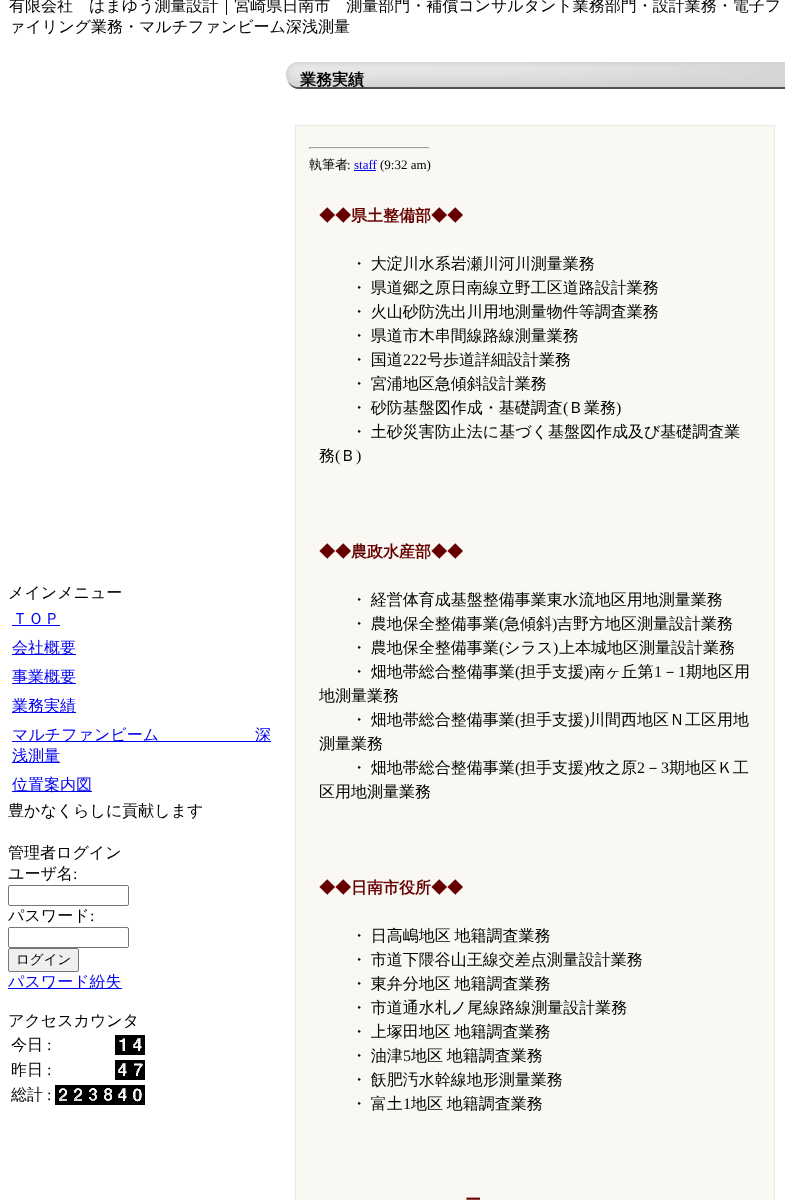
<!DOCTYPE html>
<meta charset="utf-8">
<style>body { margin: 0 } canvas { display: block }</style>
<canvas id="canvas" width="793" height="1200"></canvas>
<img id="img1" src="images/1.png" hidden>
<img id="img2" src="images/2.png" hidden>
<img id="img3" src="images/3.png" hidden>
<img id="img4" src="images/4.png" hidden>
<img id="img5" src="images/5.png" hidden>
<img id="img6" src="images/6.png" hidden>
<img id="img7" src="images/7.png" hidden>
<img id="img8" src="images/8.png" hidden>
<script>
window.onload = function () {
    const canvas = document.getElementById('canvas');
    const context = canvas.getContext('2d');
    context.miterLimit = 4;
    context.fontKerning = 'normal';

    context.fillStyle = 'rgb(255, 255, 255)';
    context.fillRect(0, 0, 793, 1200);
    context.fillStyle = 'rgb(0, 0, 238)';
    context.fillRect(12, 625, 48, 1);
    context.fillRect(12, 654, 64, 1);
    context.fillRect(12, 683, 64, 1);
    context.fillRect(12, 712, 64, 1);
    context.fillRect(12, 741, 259, 1);
    context.fillRect(12, 762, 48, 1);
    context.fillRect(12, 791, 80, 1);
    context.beginPath();
    context.roundRect(8.5, 885.5, 120, 20, 1.5);
    context.strokeStyle = 'rgb(118, 118, 118)';
    context.stroke();
    context.beginPath();
    context.roundRect(8.5, 927.5, 120, 20, 1.5);
    context.stroke();
    context.fillStyle = 'rgb(239, 239, 239)';
    context.beginPath();
    context.roundRect(8.5, 948.5, 70, 23, 1.5);
    context.fill();
    context.stroke();
    context.fillStyle = 'rgb(0, 0, 238)';
    context.fillRect(8, 988, 114, 1);
    context.drawImage(document.getElementById('img1'), 115, 1035, 15, 20);
    context.drawImage(document.getElementById('img2'), 130, 1035, 15, 20);
    context.drawImage(document.getElementById('img2'), 115, 1060, 15, 20);
    context.drawImage(document.getElementById('img3'), 130, 1060, 15, 20);
    context.drawImage(document.getElementById('img4'), 55, 1085, 15, 20);
    context.drawImage(document.getElementById('img4'), 70, 1085, 15, 20);
    context.drawImage(document.getElementById('img5'), 85, 1085, 15, 20);
    context.drawImage(document.getElementById('img6'), 100, 1085, 15, 20);
    context.drawImage(document.getElementById('img2'), 115, 1085, 15, 20);
    context.drawImage(document.getElementById('img7'), 130, 1085, 15, 20);
    context.drawImage(document.getElementById('img8'), 286, 62, 499, 27);
    context.fillStyle = 'rgb(249, 248, 243)';
    context.beginPath();
    context.rect(295.5, 125.5, 479, 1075);
    context.fill();
    context.strokeStyle = 'rgb(236, 234, 221)';
    context.stroke();
    context.fillStyle = 'rgb(159, 159, 159)';
    context.fillRect(309, 147, 121, 1);
    context.fillStyle = 'rgb(238, 238, 238)';
    context.fillRect(429, 147, 1, 2);
    context.fillRect(309, 148, 121, 1);
    context.fillStyle = 'rgb(159, 159, 159)';
    context.fillRect(309, 147, 1, 2);
    context.fillStyle = 'rgb(0, 0, 238)';
    context.fillRect(354, 170, 22, 1);
    context.font = '500 16px WenQuanYi Zen Hei';
    context.fillStyle = 'rgb(0, 0, 0)';
    context.fillText('有限会社　はまゆう測量設計｜宮崎県日南市　測量部門・補償コンサルタント業務部門・設計業務・電子フ', 9, 11);
    context.fillText('ァイリング業務・マルチファンビーム深浅測量', 9, 32);
    context.fillText('メインメニュー', 8, 598);
    context.fillStyle = 'rgb(0, 0, 238)';
    context.fillText('ＴＯＰ', 12, 624);
    context.fillText('会社概要', 12, 653);
    context.fillText('事業概要', 12, 682);
    context.fillText('業務実績', 12, 711);
    context.fillText('マルチファンビーム　　　　　　深', 12, 740);
    context.fillText('浅測量', 12, 761);
    context.fillText('位置案内図', 12, 790);
    context.fillStyle = 'rgb(0, 0, 0)';
    context.fillText('豊かなくらしに貢献します', 8, 816);
    context.fillText('管理者ログイン', 8, 858);
    context.fillText('ユーザ名', 8, 879);
    context.font = '16px Liberation Serif';
    context.fillText(':', 73, 879);
    context.font = '500 16px WenQuanYi Zen Hei';
    context.fillText('パスワード', 8, 921);
    context.font = '16px Liberation Serif';
    context.fillText(':', 90, 921);
    context.font = '500 13.5px WenQuanYi Zen Hei';
    context.fillText('ログイン', 16, 964);
    context.font = '500 16px WenQuanYi Zen Hei';
    context.fillStyle = 'rgb(0, 0, 238)';
    context.fillText('パスワード紛失', 8, 987);
    context.fillStyle = 'rgb(0, 0, 0)';
    context.fillText('アクセスカウンタ', 8, 1026);
    context.fillText('今日', 11, 1050);
    context.font = '16px Liberation Serif';
    context.fillText(':', 47, 1050);
    context.font = '500 16px WenQuanYi Zen Hei';
    context.fillText('昨日', 11, 1075);
    context.font = '16px Liberation Serif';
    context.fillText(':', 47, 1075);
    context.font = '500 16px WenQuanYi Zen Hei';
    context.fillText('総計', 11, 1100);
    context.font = '16px Liberation Serif';
    context.fillText(':', 47, 1100);
    context.font = 'bold 16px WenQuanYi Zen Hei';
    context.fillText('業務実績', 300, 85);
    context.font = '500 13px WenQuanYi Zen Hei';
    context.fillText('執筆者', 309, 169);
    context.font = '13px Liberation Serif';
    context.fillText(':', 347, 169);
    context.fillStyle = 'rgb(0, 0, 238)';
    context.fillText('staff', 354, 169);
    context.fillStyle = 'rgb(0, 0, 0)';
    context.fillText('(9:32 am)', 380, 169);
    context.font = 'bold 16px WenQuanYi Zen Hei';
    context.fillStyle = 'rgb(102, 0, 0)';
    context.fillText('◆◆県土整備部◆◆', 319, 221);
    context.wordSpacing = '-1px';
    context.font = '500 16px WenQuanYi Zen Hei';
    context.fillStyle = 'rgb(0, 0, 0)';
    context.fillText('・ 大淀川水系岩瀬川河川測量業務', 351, 269);
    context.fillText('・ 県道郷之原日南線立野工区道路設計業務', 351, 293);
    context.fillText('・ 火山砂防洗出川用地測量物件等調査業務', 351, 317);
    context.fillText('・ 県道市木串間線路線測量業務', 351, 341);
    context.fillText('・ 国道', 351, 365);
    context.wordSpacing = '0px';
    context.font = '16px Liberation Serif';
    context.fillText('222', 403, 365);
    context.font = '500 16px WenQuanYi Zen Hei';
    context.fillText('号歩道詳細設計業務', 427, 365);
    context.wordSpacing = '-1px';
    context.fillText('・ 宮浦地区急傾斜設計業務', 351, 389);
    context.fillText('・ 砂防基盤図作成・基礎調査', 351, 413);
    context.wordSpacing = '0px';
    context.font = '16px Liberation Serif';
    context.fillText('(', 563, 413);
    context.font = '500 16px WenQuanYi Zen Hei';
    context.fillText('Ｂ業務', 568, 413);
    context.font = '16px Liberation Serif';
    context.fillText(')', 616, 413);
    context.wordSpacing = '-1px';
    context.font = '500 16px WenQuanYi Zen Hei';
    context.fillText('・ 土砂災害防止法に基づく基盤図作成及び基礎調査業', 351, 437);
    context.wordSpacing = '0px';
    context.fillText('務', 319, 461);
    context.font = '16px Liberation Serif';
    context.fillText('(', 335, 461);
    context.font = '500 16px WenQuanYi Zen Hei';
    context.fillText('Ｂ', 340, 461);
    context.font = '16px Liberation Serif';
    context.fillText(')', 356, 461);
    context.font = 'bold 16px WenQuanYi Zen Hei';
    context.fillStyle = 'rgb(102, 0, 0)';
    context.fillText('◆◆農政水産部◆◆', 319, 557);
    context.wordSpacing = '-1px';
    context.font = '500 16px WenQuanYi Zen Hei';
    context.fillStyle = 'rgb(0, 0, 0)';
    context.fillText('・ 経営体育成基盤整備事業東水流地区用地測量業務', 351, 605);
    context.fillText('・ 農地保全整備事業', 351, 629);
    context.wordSpacing = '0px';
    context.font = '16px Liberation Serif';
    context.fillText('(', 499, 629);
    context.font = '500 16px WenQuanYi Zen Hei';
    context.fillText('急傾斜', 504, 629);
    context.font = '16px Liberation Serif';
    context.fillText(')', 552, 629);
    context.font = '500 16px WenQuanYi Zen Hei';
    context.fillText('吉野方地区測量設計業務', 557, 629);
    context.wordSpacing = '-1px';
    context.fillText('・ 農地保全整備事業', 351, 653);
    context.wordSpacing = '0px';
    context.font = '16px Liberation Serif';
    context.fillText('(', 499, 653);
    context.font = '500 16px WenQuanYi Zen Hei';
    context.fillText('シラス', 504, 653);
    context.font = '16px Liberation Serif';
    context.fillText(')', 553, 653);
    context.font = '500 16px WenQuanYi Zen Hei';
    context.fillText('上本城地区測量設計業務', 559, 653);
    context.wordSpacing = '-1px';
    context.fillText('・ 畑地帯総合整備事業', 351, 677);
    context.wordSpacing = '0px';
    context.font = '16px Liberation Serif';
    context.fillText('(', 515, 677);
    context.font = '500 16px WenQuanYi Zen Hei';
    context.fillText('担手支援', 520, 677);
    context.font = '16px Liberation Serif';
    context.fillText(')', 584, 677);
    context.font = '500 16px WenQuanYi Zen Hei';
    context.fillText('南ヶ丘第', 589, 677);
    context.font = '16px Liberation Serif';
    context.fillText('1', 654, 677);
    context.font = '500 16px WenQuanYi Zen Hei';
    context.fillText('－', 662, 677);
    context.font = '16px Liberation Serif';
    context.fillText('1', 678, 677);
    context.font = '500 16px WenQuanYi Zen Hei';
    context.fillText('期地区用', 686, 677);
    context.fillText('地測量業務', 319, 701);
    context.wordSpacing = '-1px';
    context.fillText('・ 畑地帯総合整備事業', 351, 725);
    context.wordSpacing = '0px';
    context.font = '16px Liberation Serif';
    context.fillText('(', 515, 725);
    context.font = '500 16px WenQuanYi Zen Hei';
    context.fillText('担手支援', 520, 725);
    context.font = '16px Liberation Serif';
    context.fillText(')', 584, 725);
    context.font = '500 16px WenQuanYi Zen Hei';
    context.fillText('川間西地区Ｎ工区用地', 589, 725);
    context.fillText('測量業務', 319, 749);
    context.wordSpacing = '-1px';
    context.fillText('・ 畑地帯総合整備事業', 351, 773);
    context.wordSpacing = '0px';
    context.font = '16px Liberation Serif';
    context.fillText('(', 515, 773);
    context.font = '500 16px WenQuanYi Zen Hei';
    context.fillText('担手支援', 520, 773);
    context.font = '16px Liberation Serif';
    context.fillText(')', 584, 773);
    context.font = '500 16px WenQuanYi Zen Hei';
    context.fillText('牧之原', 589, 773);
    context.font = '16px Liberation Serif';
    context.fillText('2', 637, 773);
    context.font = '500 16px WenQuanYi Zen Hei';
    context.fillText('－', 645, 773);
    context.font = '16px Liberation Serif';
    context.fillText('3', 661, 773);
    context.font = '500 16px WenQuanYi Zen Hei';
    context.fillText('期地区Ｋ工', 669, 773);
    context.fillText('区用地測量業務', 319, 797);
    context.font = 'bold 16px WenQuanYi Zen Hei';
    context.fillStyle = 'rgb(102, 0, 0)';
    context.fillText('◆◆日南市役所◆◆', 319, 893);
    context.wordSpacing = '-1px';
    context.font = '500 16px WenQuanYi Zen Hei';
    context.fillStyle = 'rgb(0, 0, 0)';
    context.fillText('・ 日高嶋地区 地籍調査業務', 351, 941);
    context.fillText('・ 市道下隈谷山王線交差点測量設計業務', 351, 965);
    context.fillText('・ 東弁分地区 地籍調査業務', 351, 989);
    context.fillText('・ 市道通水札ノ尾線路線測量設計業務', 351, 1013);
    context.fillText('・ 上塚田地区 地籍調査業務', 351, 1037);
    context.fillText('・ 油津', 351, 1061);
    context.wordSpacing = '0px';
    context.font = '16px Liberation Serif';
    context.fillText('5', 403, 1061);
    context.wordSpacing = '-1px';
    context.font = '500 16px WenQuanYi Zen Hei';
    context.fillText('地区 地籍調査業務', 411, 1061);
    context.fillText('・ 飫肥汚水幹線地形測量業務', 351, 1085);
    context.fillText('・ 富土', 351, 1109);
    context.wordSpacing = '0px';
    context.font = '16px Liberation Serif';
    context.fillText('1', 403, 1109);
    context.wordSpacing = '-1px';
    context.font = '500 16px WenQuanYi Zen Hei';
    context.fillText('地区 地籍調査業務', 411, 1109);
    context.wordSpacing = '0px';
    context.font = 'bold 16px WenQuanYi Zen Hei';
    context.fillStyle = 'rgb(102, 0, 0)';
    context.fillText('ー', 465, 1205);
};
</script>
